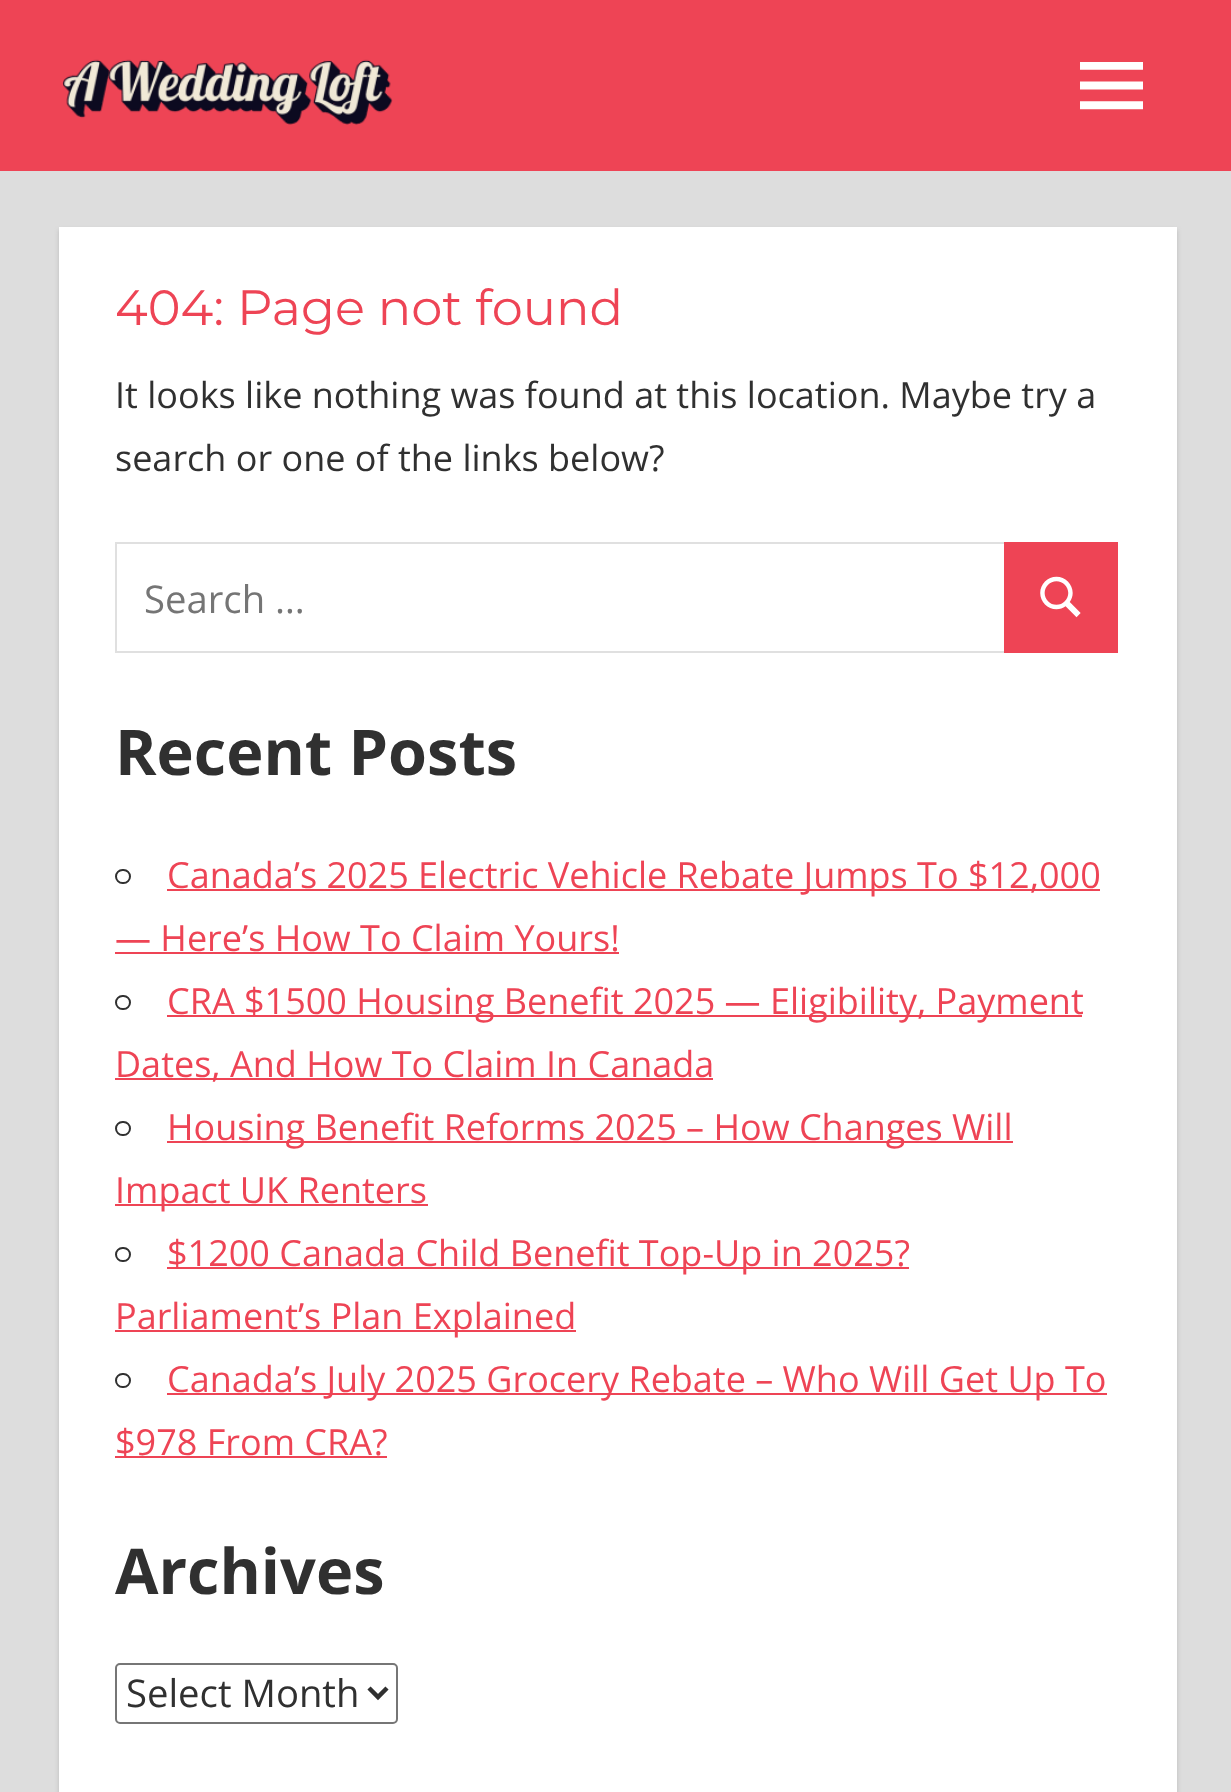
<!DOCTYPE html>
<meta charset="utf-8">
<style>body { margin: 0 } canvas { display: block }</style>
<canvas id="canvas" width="1231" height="1792"></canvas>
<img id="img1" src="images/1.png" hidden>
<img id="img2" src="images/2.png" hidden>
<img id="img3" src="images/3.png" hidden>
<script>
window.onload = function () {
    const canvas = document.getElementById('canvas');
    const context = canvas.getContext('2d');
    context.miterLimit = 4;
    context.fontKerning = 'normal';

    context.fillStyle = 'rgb(221, 221, 221)';
    context.fillRect(0, 0, 1231, 1792);
    context.fillStyle = 'rgb(238, 68, 85)';
    context.fillRect(0, 0, 1231, 171);
    context.drawImage(document.getElementById('img1'), 62, 59, 331, 66);
    context.drawImage(document.getElementById('img2'), 1080, 62, 63, 48);
    context.fillStyle = 'rgb(187, 187, 187)';
    context.filter = 'blur(2px)';
    context.beginPath();
    context.rect(59, 230, 1118, 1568);
    context.fill();
    context.filter = 'none';
    context.fillStyle = 'rgb(255, 255, 255)';
    context.fillRect(59, 227, 1118, 1565);
    context.strokeStyle = 'rgb(224, 224, 224)';
    context.lineWidth = 2;
    context.strokeRect(116, 543, 889, 109);
    context.fillStyle = 'rgb(238, 68, 85)';
    context.fillRect(1004, 542, 114, 111);
    context.drawImage(document.getElementById('img3'), 1040, 576, 41, 42);
    context.beginPath();
    context.roundRect(116, 870, 14, 13, 6.5);
    context.strokeStyle = 'rgb(48, 48, 48)';
    context.stroke();
    context.fillRect(167, 889, 933, 2);
    context.fillRect(115, 952, 504, 2);
    context.beginPath();
    context.roundRect(116, 996, 14, 13, 6.5);
    context.stroke();
    context.fillRect(167, 1015, 915, 2);
    context.fillRect(115, 1078, 598, 2);
    context.beginPath();
    context.roundRect(116, 1122, 14, 13, 6.5);
    context.stroke();
    context.fillRect(167, 1141, 846, 2);
    context.fillRect(115, 1204, 313, 2);
    context.beginPath();
    context.roundRect(116, 1248, 14, 13, 6.5);
    context.stroke();
    context.fillRect(167, 1267, 742, 2);
    context.fillRect(115, 1330, 461, 2);
    context.beginPath();
    context.roundRect(116, 1374, 14, 13, 6.5);
    context.stroke();
    context.fillRect(167, 1393, 940, 2);
    context.fillRect(115, 1456, 272, 2);
    context.beginPath();
    context.roundRect(116, 1664, 281, 59, 4);
    context.strokeStyle = 'rgb(118, 118, 118)';
    context.stroke();
    context.beginPath();
    context.moveTo(369, 1688);
    context.lineTo(378, 1697);
    context.lineTo(387, 1688);
    context.strokeStyle = 'rgb(48, 48, 48)';
    context.lineWidth = 4.5;
    context.stroke();
    context.font = '49.5px Montserrat';
    context.fillText('404: Page not found', 115, 325);
    context.font = '36px Open Sans';
    context.fillStyle = 'rgb(48, 48, 48)';
    context.fillText('It looks like nothing was found at this location. Maybe try a', 115, 408);
    context.fillText('search or one of the links below?', 115, 471);
    context.font = '38.25px Open Sans';
    context.fillStyle = 'rgb(117, 117, 117)';
    context.fillText('Search …', 144, 613);
    context.font = 'bold 63px Open Sans';
    context.fillStyle = 'rgb(48, 48, 48)';
    context.fillText('Recent Posts', 115, 775);
    context.font = '36px Open Sans';
    context.fillStyle = 'rgb(238, 68, 85)';
    context.fillText('Canada’s 2025 Electric Vehicle Rebate Jumps To $12,000', 167, 888);
    context.fillText('— Here’s How To Claim Yours!', 115, 951);
    context.fillText('CRA $1500 Housing Benefit 2025 — Eligibility, Payment', 167, 1014);
    context.fillText('Dates, And How To Claim In Canada', 115, 1077);
    context.fillText('Housing Benefit Reforms 2025 – How Changes Will', 167, 1140);
    context.fillText('Impact UK Renters', 115, 1203);
    context.fillText('$1200 Canada Child Benefit Top-Up in 2025?', 167, 1266);
    context.fillText('Parliament’s Plan Explained', 115, 1329);
    context.fillText('Canada’s July 2025 Grocery Rebate – Who Will Get Up To', 167, 1392);
    context.fillText('$978 From CRA?', 115, 1455);
    context.font = 'bold 63px Open Sans';
    context.fillStyle = 'rgb(48, 48, 48)';
    context.fillText('Archives', 115, 1594);
    context.font = '38.25px Open Sans';
    context.fillText('Select Month', 126, 1707);
};
</script>
